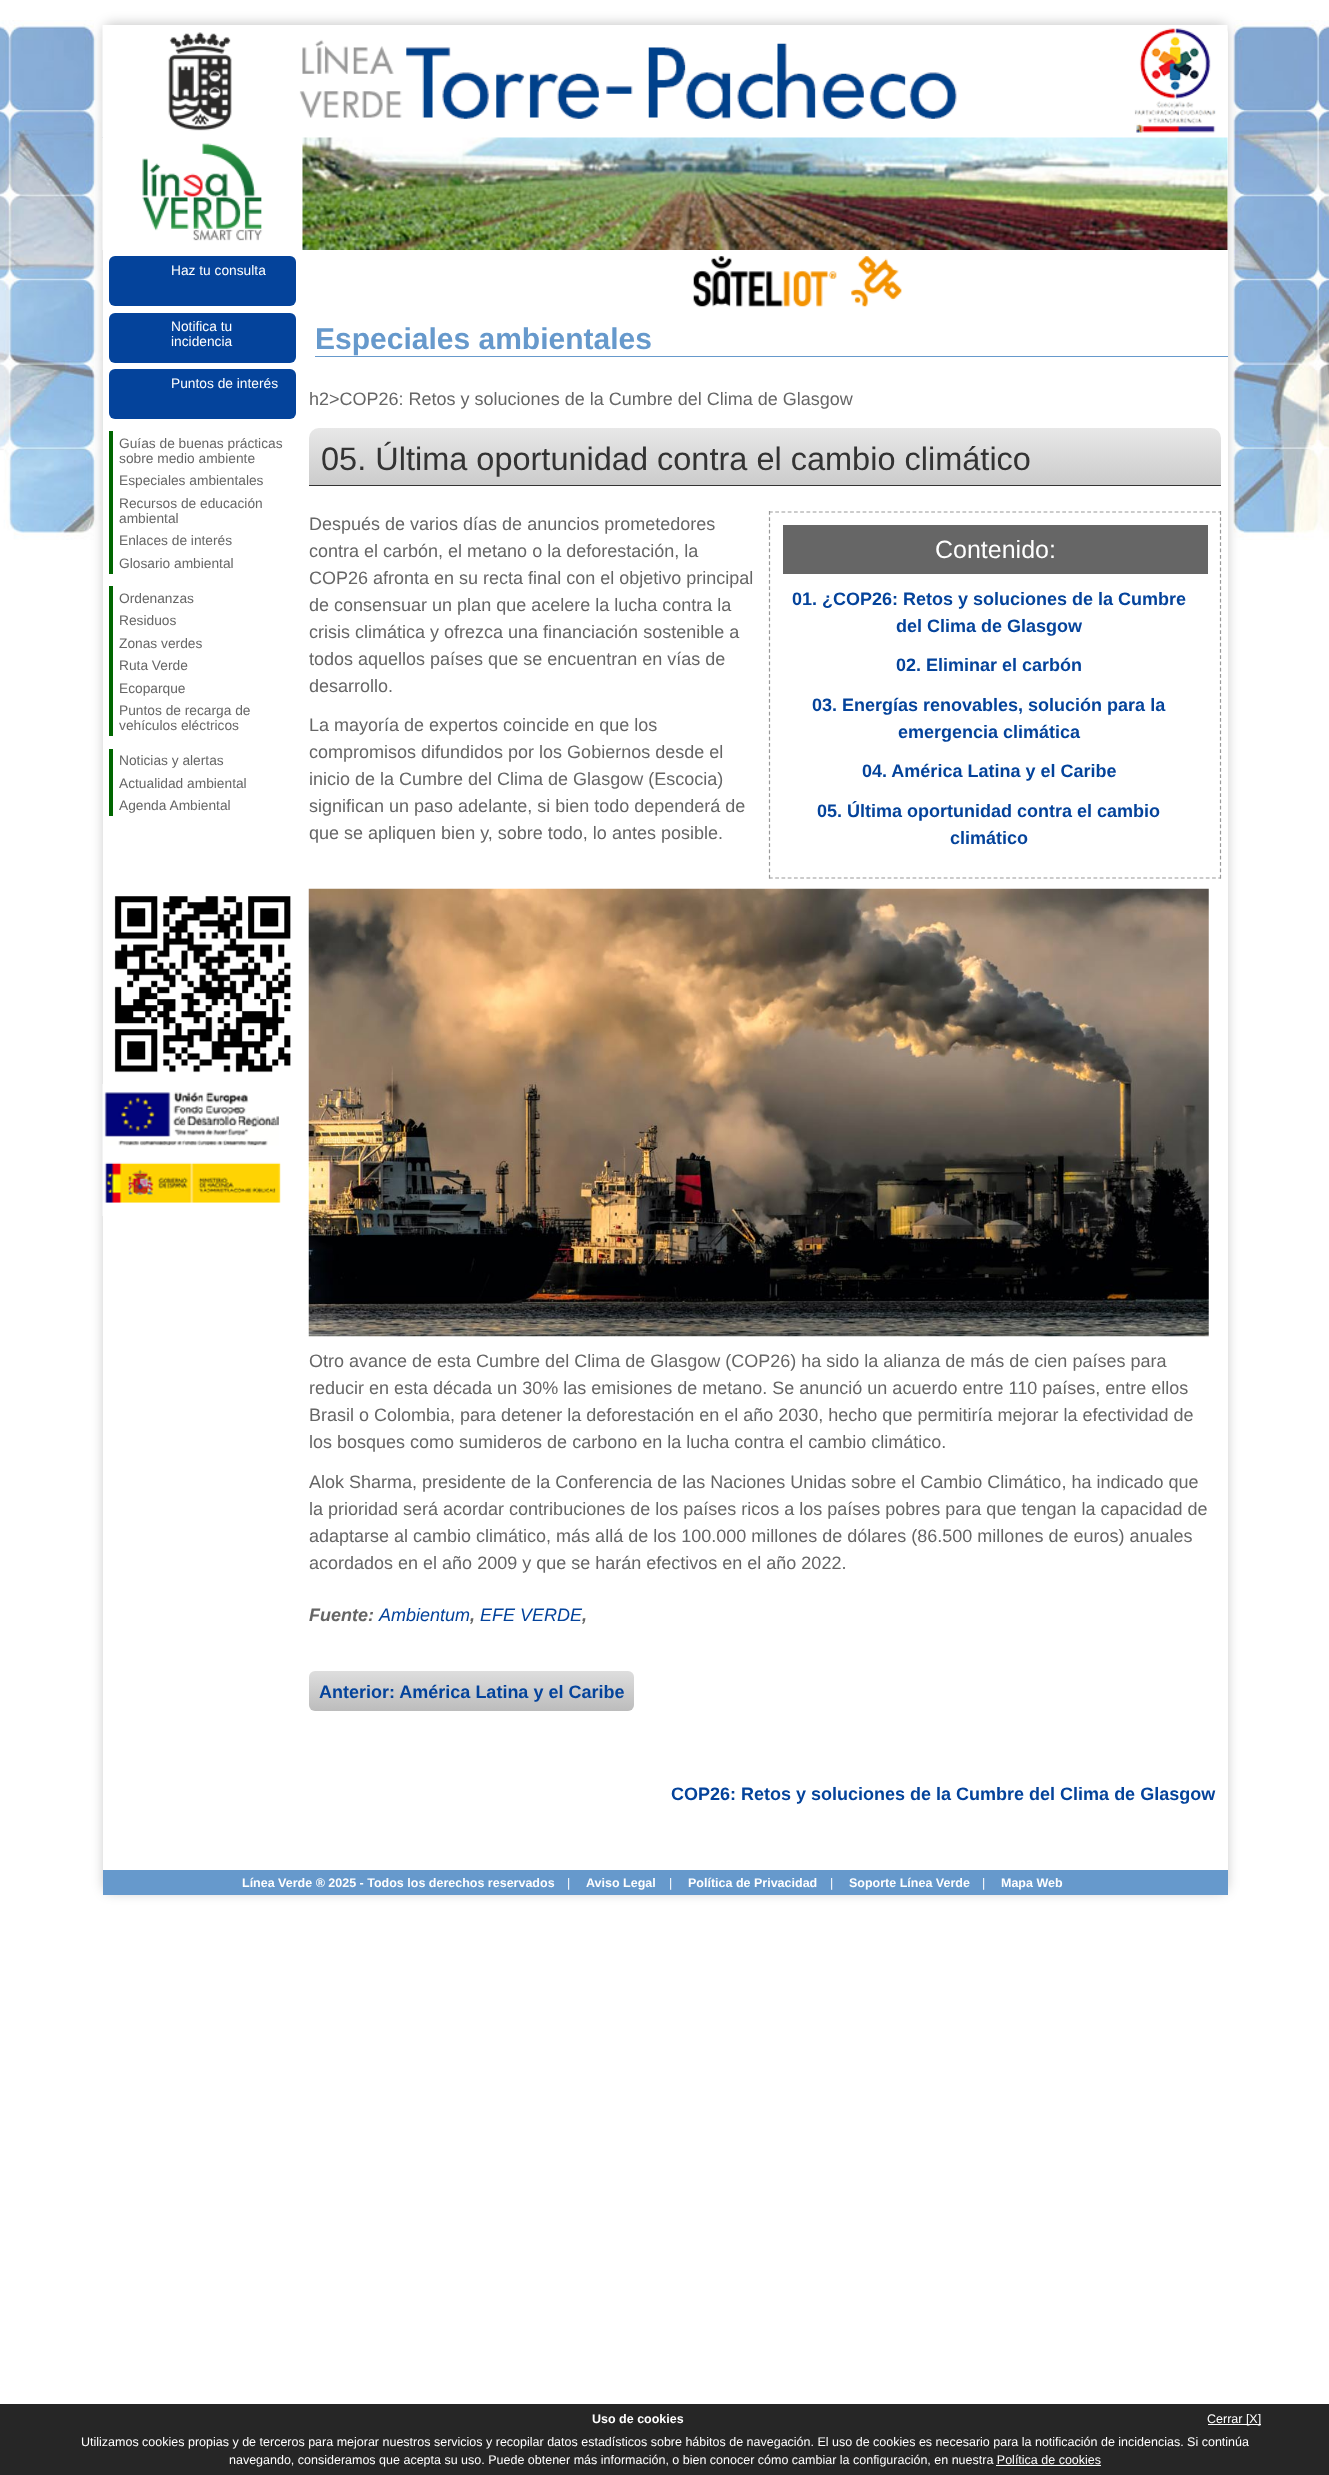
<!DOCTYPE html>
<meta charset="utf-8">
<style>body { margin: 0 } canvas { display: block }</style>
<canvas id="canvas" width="1329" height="2475"></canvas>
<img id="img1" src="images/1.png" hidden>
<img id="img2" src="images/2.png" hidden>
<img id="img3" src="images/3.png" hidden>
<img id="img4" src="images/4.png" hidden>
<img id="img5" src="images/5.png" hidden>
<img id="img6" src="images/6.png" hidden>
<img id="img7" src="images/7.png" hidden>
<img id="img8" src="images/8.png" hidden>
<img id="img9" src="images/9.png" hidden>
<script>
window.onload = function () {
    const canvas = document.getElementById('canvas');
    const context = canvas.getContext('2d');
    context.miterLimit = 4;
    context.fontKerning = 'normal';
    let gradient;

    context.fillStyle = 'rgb(255, 255, 255)';
    context.fillRect(0, 0, 1329, 2475);
    context.drawImage(document.getElementById('img1'), 0, 20, 1329, 520);
    context.fillStyle = 'rgba(0, 0, 0, 0.2)';
    context.filter = 'blur(6px)';
    context.beginPath();
    context.roundRect(103, 23, 1125, 1870, 9);
    context.fill();
    context.filter = 'none';
    context.fillStyle = 'rgb(255, 255, 255)';
    context.beginPath();
    context.roundRect(103, 25, 1125, 1870, 9);
    context.fill();
    context.drawImage(document.getElementById('img2'), 102, 25, 1126, 112);
    context.drawImage(document.getElementById('img3'), 102, 138, 161, 112);
    context.drawImage(document.getElementById('img4'), 302, 137, 926, 113);
    context.drawImage(document.getElementById('img5'), 693, 256, 209, 51);
    context.fillStyle = 'rgb(4, 67, 155)';
    context.beginPath();
    context.roundRect(109, 256, 187, 50, 6);
    context.fill();
    context.beginPath();
    context.roundRect(109, 313, 187, 50, 6);
    context.fill();
    context.beginPath();
    context.roundRect(109, 369, 187, 50, 6);
    context.fill();
    context.fillStyle = 'rgb(0, 102, 0)';
    context.fillRect(109, 431, 4, 143);
    context.fillRect(109, 586, 4, 150);
    context.fillRect(109, 749, 4, 67);
    context.drawImage(document.getElementById('img6'), 114, 896, 177, 177);
    context.drawImage(document.getElementById('img7'), 102, 1084, 177, 66);
    context.drawImage(document.getElementById('img8'), 102, 1150, 179, 66);
    context.fillStyle = 'rgb(102, 153, 204)';
    context.fillRect(315, 356, 913, 1);
    gradient = context.createLinearGradient(765, 427, 765, 485);
    gradient.addColorStop(0, 'rgb(232, 232, 232)');
    gradient.addColorStop(1, 'rgb(204, 204, 204)');
    context.fillStyle = gradient;
    context.beginPath();
    context.roundRect(309, 428, 912, 57, [10, 10, 0, 0]);
    context.fill();
    context.fillStyle = 'rgb(51, 51, 51)';
    context.fillRect(309, 485, 912, 1);
    context.beginPath();
    context.moveTo(769, 512);
    context.lineTo(1221, 512);
    context.strokeStyle = 'rgb(153, 153, 153)';
    context.lineWidth = 1.2;
    context.setLineDash([3.75, 2.49]);
    context.stroke();
    context.beginPath();
    context.moveTo(1220.5, 511);
    context.lineTo(1220.5, 879);
    context.setLineDash([3.75, 2.52]);
    context.stroke();
    context.beginPath();
    context.moveTo(769, 878);
    context.lineTo(1221, 878);
    context.setLineDash([3.75, 2.49]);
    context.stroke();
    context.beginPath();
    context.moveTo(769.5, 511);
    context.lineTo(769.5, 879);
    context.setLineDash([3.75, 2.52]);
    context.stroke();
    context.fillStyle = 'rgb(102, 102, 102)';
    context.fillRect(783, 525, 425, 49);
    context.drawImage(document.getElementById('img9'), 308, 888, 901, 449);
    gradient = context.createLinearGradient(471, 1671, 471, 1711);
    gradient.addColorStop(0, 'rgb(222, 222, 222)');
    gradient.addColorStop(1, 'rgb(188, 188, 188)');
    context.fillStyle = gradient;
    context.beginPath();
    context.roundRect(309, 1671, 325, 40, 6);
    context.fill();
    context.fillStyle = 'rgb(102, 153, 204)';
    context.fillRect(103, 1870, 1125, 25);
    context.fillStyle = 'rgb(38, 38, 38)';
    context.fillRect(0, 2404, 1329, 71);
    context.fillStyle = 'rgb(255, 255, 255)';
    context.fillRect(1208, 2424, 53, 1);
    context.fillRect(996, 2465, 105, 1);
    context.font = '13.75px Liberation Sans';
    context.fillText('Haz tu consulta', 171, 275);
    context.fillText('Notifica tu', 171, 331);
    context.fillText('incidencia', 171, 346);
    context.fillText('Puntos de interés', 171, 388);
    context.fillStyle = 'rgb(102, 102, 102)';
    context.fillText('Guías de buenas prácticas', 119, 448);
    context.fillText('sobre medio ambiente', 119, 463);
    context.fillText('Especiales ambientales', 119, 485);
    context.fillText('Recursos de educación', 119, 508);
    context.fillText('ambiental', 119, 523);
    context.fillText('Enlaces de interés', 119, 545);
    context.fillText('Glosario ambiental', 119, 568);
    context.fillText('Ordenanzas', 119, 603);
    context.fillText('Residuos', 119, 625);
    context.fillText('Zonas verdes', 119, 648);
    context.fillText('Ruta Verde', 119, 670);
    context.fillText('Ecoparque', 119, 693);
    context.fillText('Puntos de recarga de', 119, 715);
    context.fillText('vehículos eléctricos', 119, 730);
    context.fillText('Noticias y alertas', 119, 765);
    context.fillText('Actualidad ambiental', 119, 788);
    context.fillText('Agenda Ambiental', 119, 810);
    context.font = 'bold 30px Liberation Sans';
    context.fillStyle = 'rgb(102, 153, 204)';
    context.fillText('Especiales ambientales', 315, 349);
    context.font = '18px Liberation Sans';
    context.fillStyle = 'rgb(102, 102, 102)';
    context.fillText('h2>COP26: Retos y soluciones de la Cumbre del Clima de Glasgow', 309, 405);
    context.font = '32.5px Liberation Sans';
    context.fillStyle = 'rgb(51, 51, 51)';
    context.fillText('05. Última oportunidad contra el cambio climático', 321, 470);
    context.font = '18px Liberation Sans';
    context.fillStyle = 'rgb(102, 102, 102)';
    context.fillText('Después de varios días de anuncios prometedores', 309, 530);
    context.fillText('contra el carbón, el metano o la deforestación, la', 309, 557);
    context.fillText('COP26 afronta en su recta final con el objetivo principal', 309, 584);
    context.fillText('de consensuar un plan que acelere la lucha contra la', 309, 611);
    context.fillText('crisis climática y ofrezca una financiación sostenible a', 309, 638);
    context.fillText('todos aquellos países que se encuentran en vías de', 309, 665);
    context.fillText('desarrollo.', 309, 692);
    context.font = '25px Liberation Sans';
    context.fillStyle = 'rgb(255, 255, 255)';
    context.fillText('Contenido:', 935, 558);
    context.font = 'bold 18px Liberation Sans';
    context.fillStyle = 'rgb(4, 67, 155)';
    context.fillText('01. ¿COP26: Retos y soluciones de la Cumbre', 792, 605);
    context.fillText('del Clima de Glasgow', 896, 632);
    context.fillText('02. Eliminar el carbón', 896, 671);
    context.fillText('03. Energías renovables, solución para la', 812, 711);
    context.fillText('emergencia climática', 898, 738);
    context.fillText('04. América Latina y el Caribe', 862, 777);
    context.fillText('05. Última oportunidad contra el cambio', 817, 817);
    context.fillText('climático', 950, 844);
    context.font = '18px Liberation Sans';
    context.fillStyle = 'rgb(102, 102, 102)';
    context.fillText('La mayoría de expertos coincide en que los', 309, 731);
    context.fillText('compromisos difundidos por los Gobiernos desde el', 309, 758);
    context.fillText('inicio de la Cumbre del Clima de Glasgow (Escocia)', 309, 785);
    context.fillText('significan un paso adelante, si bien todo dependerá de', 309, 812);
    context.fillText('que se apliquen bien y, sobre todo, lo antes posible.', 309, 839);
    context.fillText('Otro avance de esta Cumbre del Clima de Glasgow (COP26) ha sido la alianza de más de cien países para', 309, 1367);
    context.fillText('reducir en esta década un 30% las emisiones de metano. Se anunció un acuerdo entre 110 países, entre ellos', 309, 1394);
    context.fillText('Brasil o Colombia, para detener la deforestación en el año 2030, hecho que permitiría mejorar la efectividad de', 309, 1421);
    context.fillText('los bosques como sumideros de carbono en la lucha contra el cambio climático.', 309, 1448);
    context.fillText('Alok Sharma, presidente de la Conferencia de las Naciones Unidas sobre el Cambio Climático, ha indicado que', 309, 1488);
    context.fillText('la prioridad será acordar contribuciones de los países ricos a los países pobres para que tengan la capacidad de', 309, 1515);
    context.fillText('adaptarse al cambio climático, más allá de los 100.000 millones de dólares (86.500 millones de euros) anuales', 309, 1542);
    context.fillText('acordados en el año 2009 y que se harán efectivos en el año 2022.', 309, 1569);
    context.font = 'italic bold 18px Liberation Sans';
    context.fillText('Fuente:', 309, 1621);
    context.font = 'italic 18px Liberation Sans';
    context.fillStyle = 'rgb(4, 67, 155)';
    context.fillText('Ambientum', 379, 1621);
    context.font = 'italic bold 18px Liberation Sans';
    context.fillStyle = 'rgb(102, 102, 102)';
    context.fillText(',', 470, 1621);
    context.font = 'italic 18px Liberation Sans';
    context.fillStyle = 'rgb(4, 67, 155)';
    context.fillText('EFE VERDE', 480, 1621);
    context.font = 'italic bold 18px Liberation Sans';
    context.fillStyle = 'rgb(102, 102, 102)';
    context.fillText(',', 582, 1621);
    context.font = 'bold 18px Liberation Sans';
    context.fillStyle = 'rgb(4, 67, 155)';
    context.fillText('Anterior: América Latina y el Caribe', 319, 1698);
    context.fillText('COP26: Retos y soluciones de la Cumbre del Clima de Glasgow', 671, 1800);
    context.font = 'bold 12.5px Liberation Sans';
    context.fillStyle = 'rgb(255, 255, 255)';
    context.fillText('Línea Verde ® 2025 - Todos los derechos reservados', 242, 1887);
    context.font = '12.5px Liberation Sans';
    context.fillText('|', 567, 1887);
    context.font = 'bold 12.5px Liberation Sans';
    context.fillText('Aviso Legal', 586, 1887);
    context.font = '12.5px Liberation Sans';
    context.fillText('|', 669, 1887);
    context.font = 'bold 12.5px Liberation Sans';
    context.fillText('Política de Privacidad', 688, 1887);
    context.font = '12.5px Liberation Sans';
    context.fillText('|', 830, 1887);
    context.font = 'bold 12.5px Liberation Sans';
    context.fillText('Soporte Línea Verde', 849, 1887);
    context.font = '12.5px Liberation Sans';
    context.fillText('|', 982, 1887);
    context.font = 'bold 12.5px Liberation Sans';
    context.fillText('Mapa Web', 1001, 1887);
    context.fillText('Uso de cookies', 592, 2423);
    context.font = '12.5px Liberation Sans';
    context.fillText('Cerrar [X]', 1207, 2423);
    context.fillText('Utilizamos cookies propias y de terceros para mejorar nuestros servicios y recopilar datos estadísticos sobre hábitos de navegación. El uso de cookies es necesario para la notificación de incidencias. Si continúa', 81, 2446);
    context.fillText('navegando, consideramos que acepta su uso. Puede obtener más información, o bien conocer cómo cambiar la configuración, en nuestra Política de cookies', 229, 2464);
};
</script>
